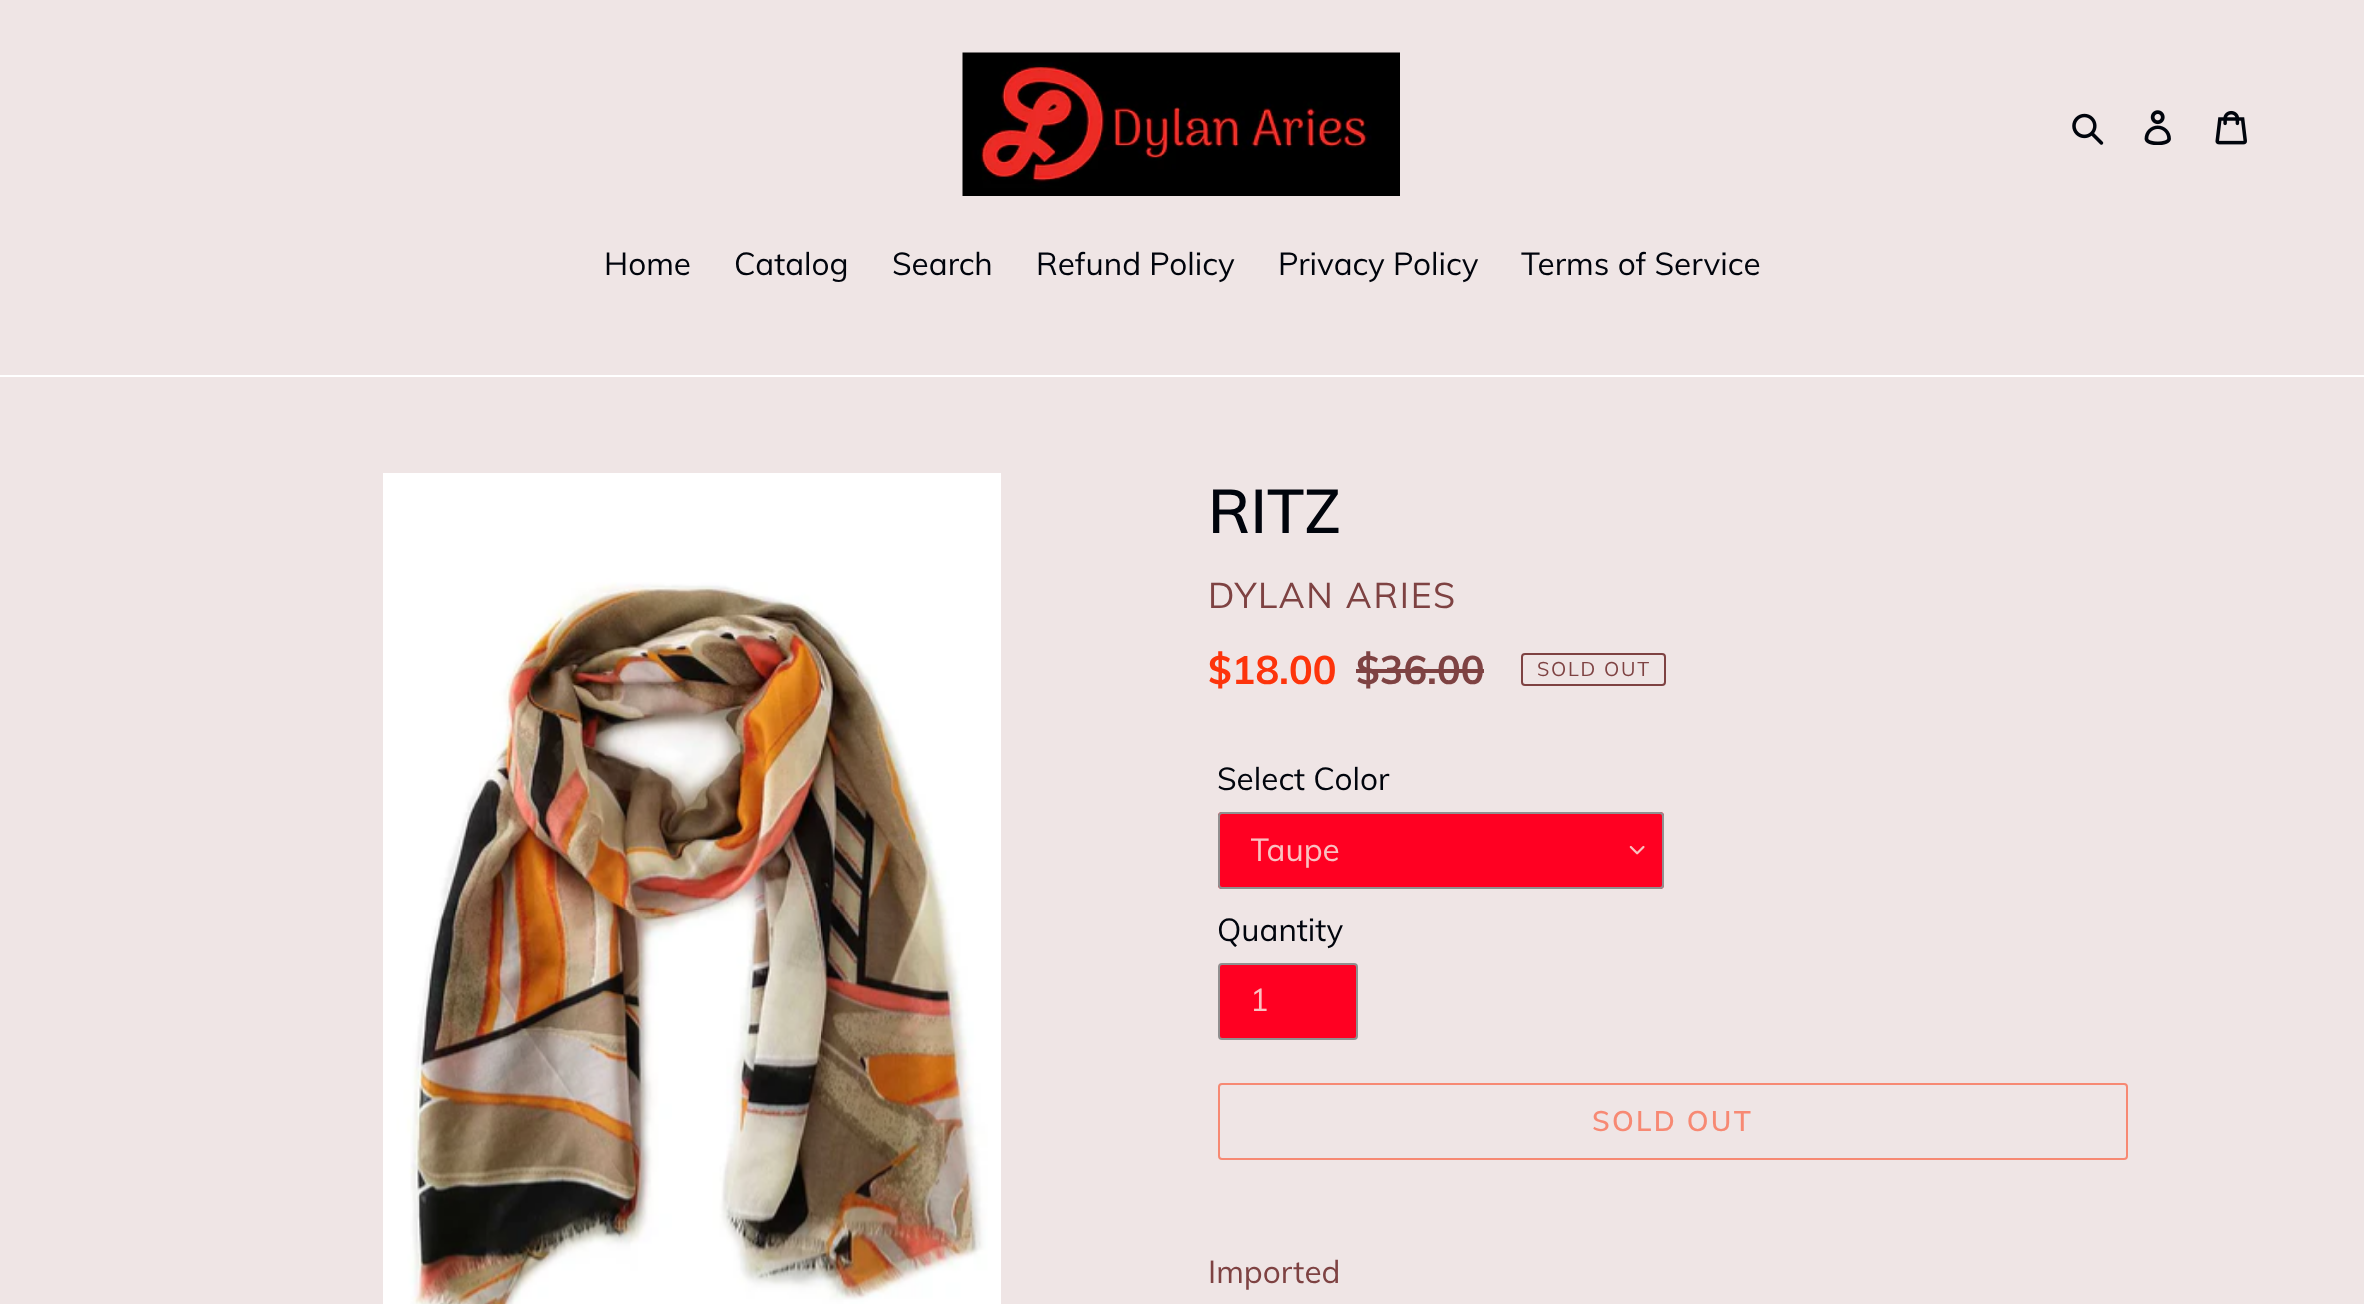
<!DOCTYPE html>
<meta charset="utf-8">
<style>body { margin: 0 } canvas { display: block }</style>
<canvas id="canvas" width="2364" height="1304"></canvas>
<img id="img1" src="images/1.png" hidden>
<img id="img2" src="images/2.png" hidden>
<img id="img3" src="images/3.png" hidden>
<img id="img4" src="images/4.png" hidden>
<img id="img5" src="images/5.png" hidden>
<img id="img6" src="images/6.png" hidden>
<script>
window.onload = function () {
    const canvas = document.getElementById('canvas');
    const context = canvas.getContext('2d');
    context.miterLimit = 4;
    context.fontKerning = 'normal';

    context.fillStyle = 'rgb(239, 229, 229)';
    context.fillRect(0, 0, 2364, 1304);
    context.drawImage(document.getElementById('img1'), 962, 52, 438, 144);
    context.drawImage(document.getElementById('img2'), 2072, 113, 32, 32);
    context.drawImage(document.getElementById('img3'), 2144, 110, 27, 35);
    context.drawImage(document.getElementById('img4'), 2215, 110, 32, 35);
    context.fillStyle = 'rgb(255, 255, 255)';
    context.fillRect(0, 375, 2364, 2);
    context.drawImage(document.getElementById('img5'), 383, 473, 618, 831);
    context.fillStyle = 'rgb(126, 66, 66)';
    context.fillRect(1356, 669, 128, 4);
    context.beginPath();
    context.roundRect(1522, 654, 143, 31, 3);
    context.strokeStyle = 'rgb(126, 66, 66)';
    context.lineWidth = 2;
    context.stroke();
    context.fillStyle = 'rgb(255, 0, 34)';
    context.beginPath();
    context.roundRect(1218, 812, 446, 77, 4);
    context.fill();
    context.drawImage(document.getElementById('img6'), 1629, 845, 16, 10);
    context.beginPath();
    context.roundRect(1219, 813, 444, 75, 3);
    context.strokeStyle = 'rgb(144, 144, 144)';
    context.stroke();
    context.beginPath();
    context.roundRect(1219, 964, 138, 75, 3);
    context.fill();
    context.stroke();
    context.beginPath();
    context.roundRect(1219, 1084, 908, 75, 3);
    context.strokeStyle = 'rgb(247, 137, 115)';
    context.stroke();
    context.font = '31.5px Muli';
    context.fillStyle = 'rgb(0, 4, 12)';
    context.fillText('Home', 604, 275);
    context.fillText('Catalog', 734, 275);
    context.fillText('Search', 892, 275);
    context.fillText('Refund Policy', 1036, 275);
    context.fillText('Privacy Policy', 1278, 275);
    context.fillText('Terms of Service', 1521, 275);
    context.font = '600 61px Muli';
    context.fillText('RITZ', 1208, 533);
    context.letterSpacing = '1.75px';
    context.font = '35.5px Muli';
    context.fillStyle = 'rgb(126, 66, 66)';
    context.fillText('DYLAN ARIES', 1208, 608);
    context.letterSpacing = '0px';
    context.font = 'bold 39.5px Muli';
    context.fillStyle = 'rgb(253, 52, 11)';
    context.fillText('$18.00', 1208, 684);
    context.fillStyle = 'rgb(126, 66, 66)';
    context.fillText('$36.00', 1356, 684);
    context.letterSpacing = '1.75px';
    context.font = '19.75px Muli';
    context.fillText('SOLD OUT', 1537, 676);
    context.letterSpacing = '0px';
    context.font = '31.5px Muli';
    context.fillStyle = 'rgb(0, 4, 12)';
    context.fillText('Select Color', 1217, 790);
    context.save();
    context.beginPath();
    context.rect(1251, 831, 363, 37);
    context.clip();
    context.fillStyle = 'rgb(250, 193, 193)';
    context.fillText('Taupe', 1250, 861);
    context.restore();
    context.fillText('Quantity', 1217, 941);
    context.fillStyle = 'rgb(250, 193, 193)';
    context.fillText('1', 1250, 1011);
    context.letterSpacing = '2.25px';
    context.font = '600 28px Muli';
    context.fillStyle = 'rgb(247, 137, 115)';
    context.fillText('SOLD OUT', 1592, 1131);
    context.letterSpacing = '0px';
    context.font = '31.5px Muli';
    context.fillStyle = 'rgb(126, 66, 66)';
    context.fillText('Imported', 1208, 1283);
};
</script>
